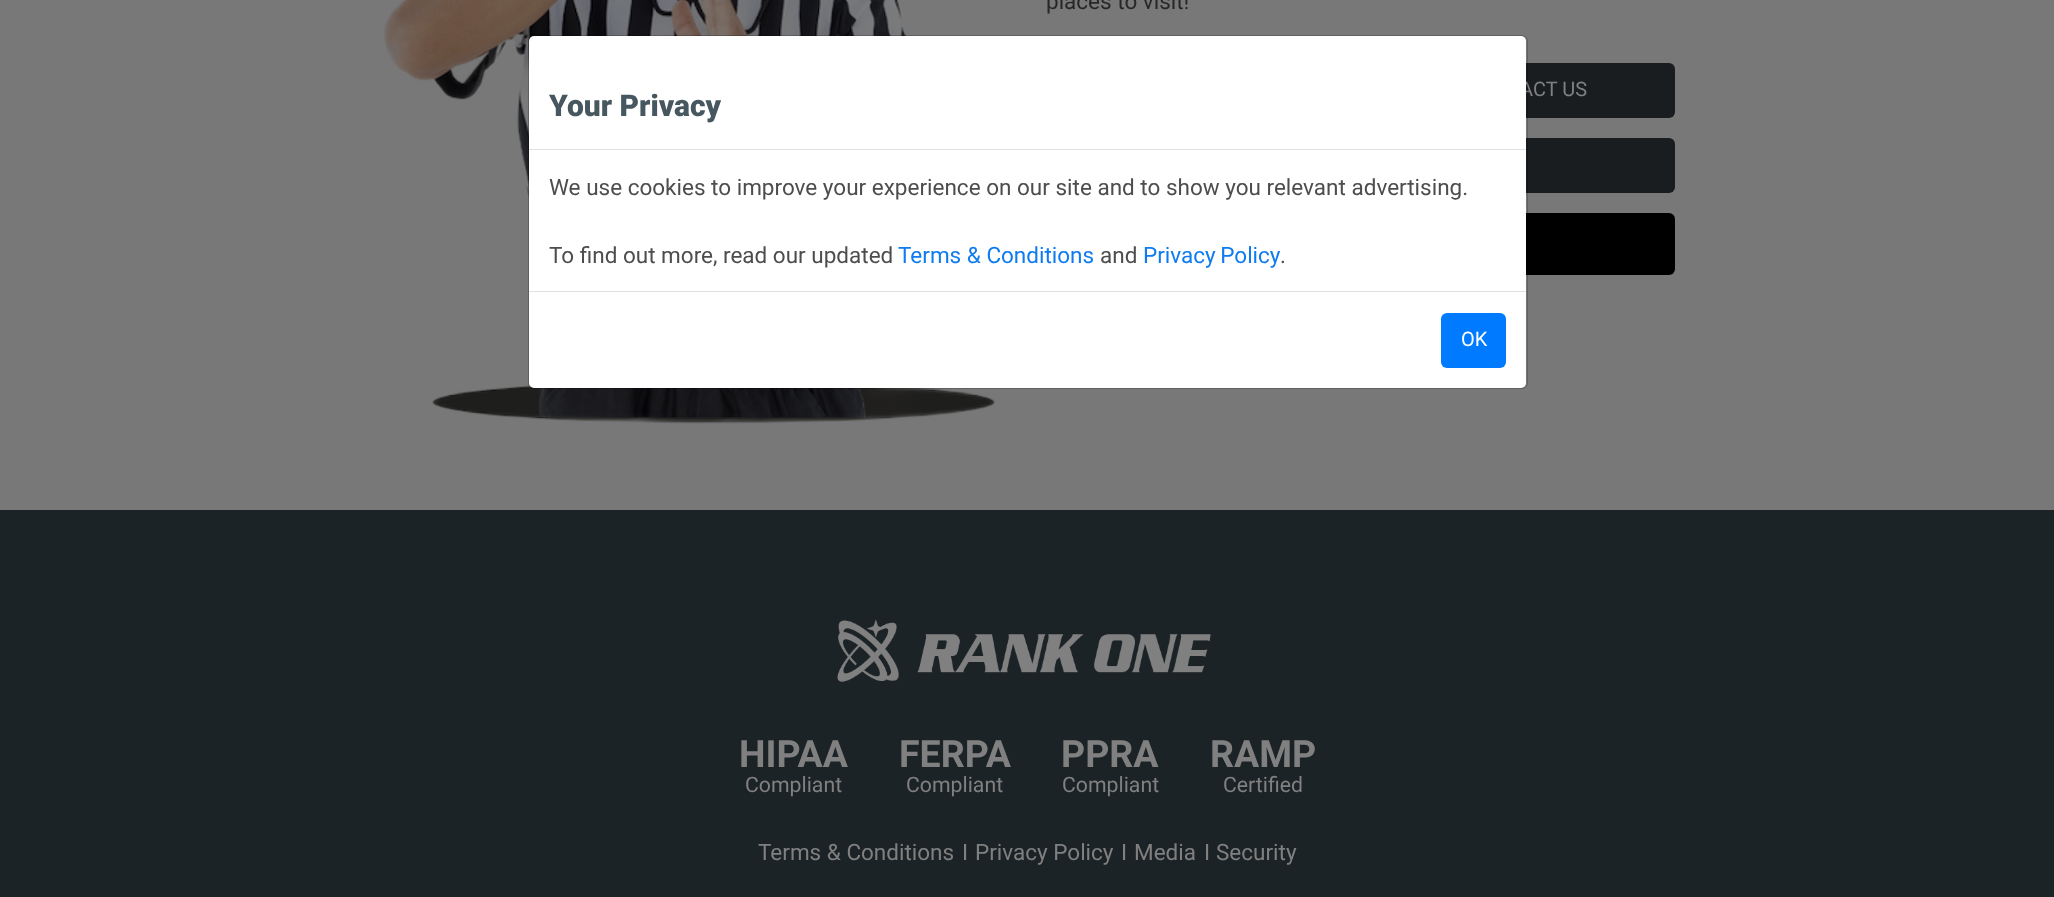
<!DOCTYPE html>
<meta charset="utf-8">
<style>body { margin: 0 } canvas { display: block }</style>
<canvas id="canvas" width="2054" height="897"></canvas>
<img id="img1" src="images/1.png" hidden>
<img id="img2" src="images/2.png" hidden>
<script>
window.onload = function () {
    const canvas = document.getElementById('canvas');
    const context = canvas.getContext('2d');
    context.miterLimit = 4;
    context.fontKerning = 'normal';

    context.fillStyle = 'rgb(120, 120, 120)';
    context.fillRect(0, 0, 2054, 897);
    context.drawImage(document.getElementById('img1'), 384, 0, 611, 424);
    context.fillStyle = 'rgb(26, 29, 32)';
    context.beginPath();
    context.roundRect(1379, 63, 296, 55, 6);
    context.fill();
    context.beginPath();
    context.roundRect(1046, 138, 629, 55, 6);
    context.fill();
    context.fillStyle = 'rgb(0, 0, 0)';
    context.beginPath();
    context.roundRect(1046, 213, 629, 62, 6);
    context.fill();
    context.fillStyle = 'rgb(28, 35, 38)';
    context.fillRect(0, 510, 2054, 387);
    context.drawImage(document.getElementById('img2'), 837, 619, 374, 63);
    context.font = '22.5px Roboto';
    context.fillStyle = 'rgb(39, 39, 39)';
    context.fillText('places to visit!', 1046, 9);
    context.font = '20px Roboto';
    context.fillStyle = 'rgb(128, 128, 128)';
    context.fillText('ACT US', 1520, 96);
    context.font = 'bold 37.5px Roboto';
    context.fillText('HIPAA', 739, 767);
    context.font = '21.25px Roboto';
    context.fillText('Compliant', 745, 792);
    context.font = 'bold 37.5px Roboto';
    context.fillText('FERPA', 899, 767);
    context.font = '21.25px Roboto';
    context.fillText('Compliant', 906, 792);
    context.font = 'bold 37.5px Roboto';
    context.fillText('PPRA', 1061, 767);
    context.font = '21.25px Roboto';
    context.fillText('Compliant', 1062, 792);
    context.font = 'bold 37.5px Roboto';
    context.fillText('RAMP', 1210, 767);
    context.font = '21.25px Roboto';
    context.fillText('Certified', 1223, 792);
    context.font = '22.5px Roboto';
    context.fillText('Terms & Conditions', 758, 860);
    context.fillText('I', 962, 860);
    context.fillText('Privacy Policy', 975, 860);
    context.fillText('I', 1121, 860);
    context.fillText('Media', 1134, 860);
    context.fillText('I', 1204, 860);
    context.fillText('Security', 1216, 860);
    context.fillStyle = 'rgb(255, 255, 255)';
    context.beginPath();
    context.roundRect(529, 36, 997, 352, 5);
    context.fill();
    context.beginPath();
    context.roundRect(528.5, 35.5, 999, 353, 5.5);
    context.strokeStyle = 'rgba(0, 0, 0, 0.2)';
    context.stroke();
    context.fillStyle = 'rgb(222, 226, 230)';
    context.fillRect(529, 149, 997, 1);
    context.font = '900 30px Roboto';
    context.fillStyle = 'rgb(71, 87, 96)';
    context.fillText('Your Privacy', 549, 116);
    context.font = '22.5px Roboto';
    context.fillStyle = 'rgb(77, 77, 77)';
    context.fillText('We use cookies to improve your experience on our site and to show you relevant advertising.', 549, 195);
    context.fillText('To find out more, read our updated', 549, 263);
    context.fillStyle = 'rgb(14, 123, 239)';
    context.fillText('Terms & Conditions', 898, 263);
    context.fillStyle = 'rgb(77, 77, 77)';
    context.fillText('and', 1100, 263);
    context.wordSpacing = '-1px';
    context.fillStyle = 'rgb(14, 123, 239)';
    context.fillText('Privacy Policy', 1143, 263);
    context.wordSpacing = '0px';
    context.fillStyle = 'rgb(77, 77, 77)';
    context.fillText('.', 1280, 263);
    context.fillStyle = 'rgb(222, 226, 230)';
    context.fillRect(529, 291, 997, 1);
    context.fillStyle = 'rgb(0, 123, 255)';
    context.beginPath();
    context.roundRect(1441, 313, 65, 55, 6);
    context.fill();
    context.font = '20px Roboto';
    context.fillStyle = 'rgb(255, 255, 255)';
    context.fillText('OK', 1461, 346);
};
</script>
